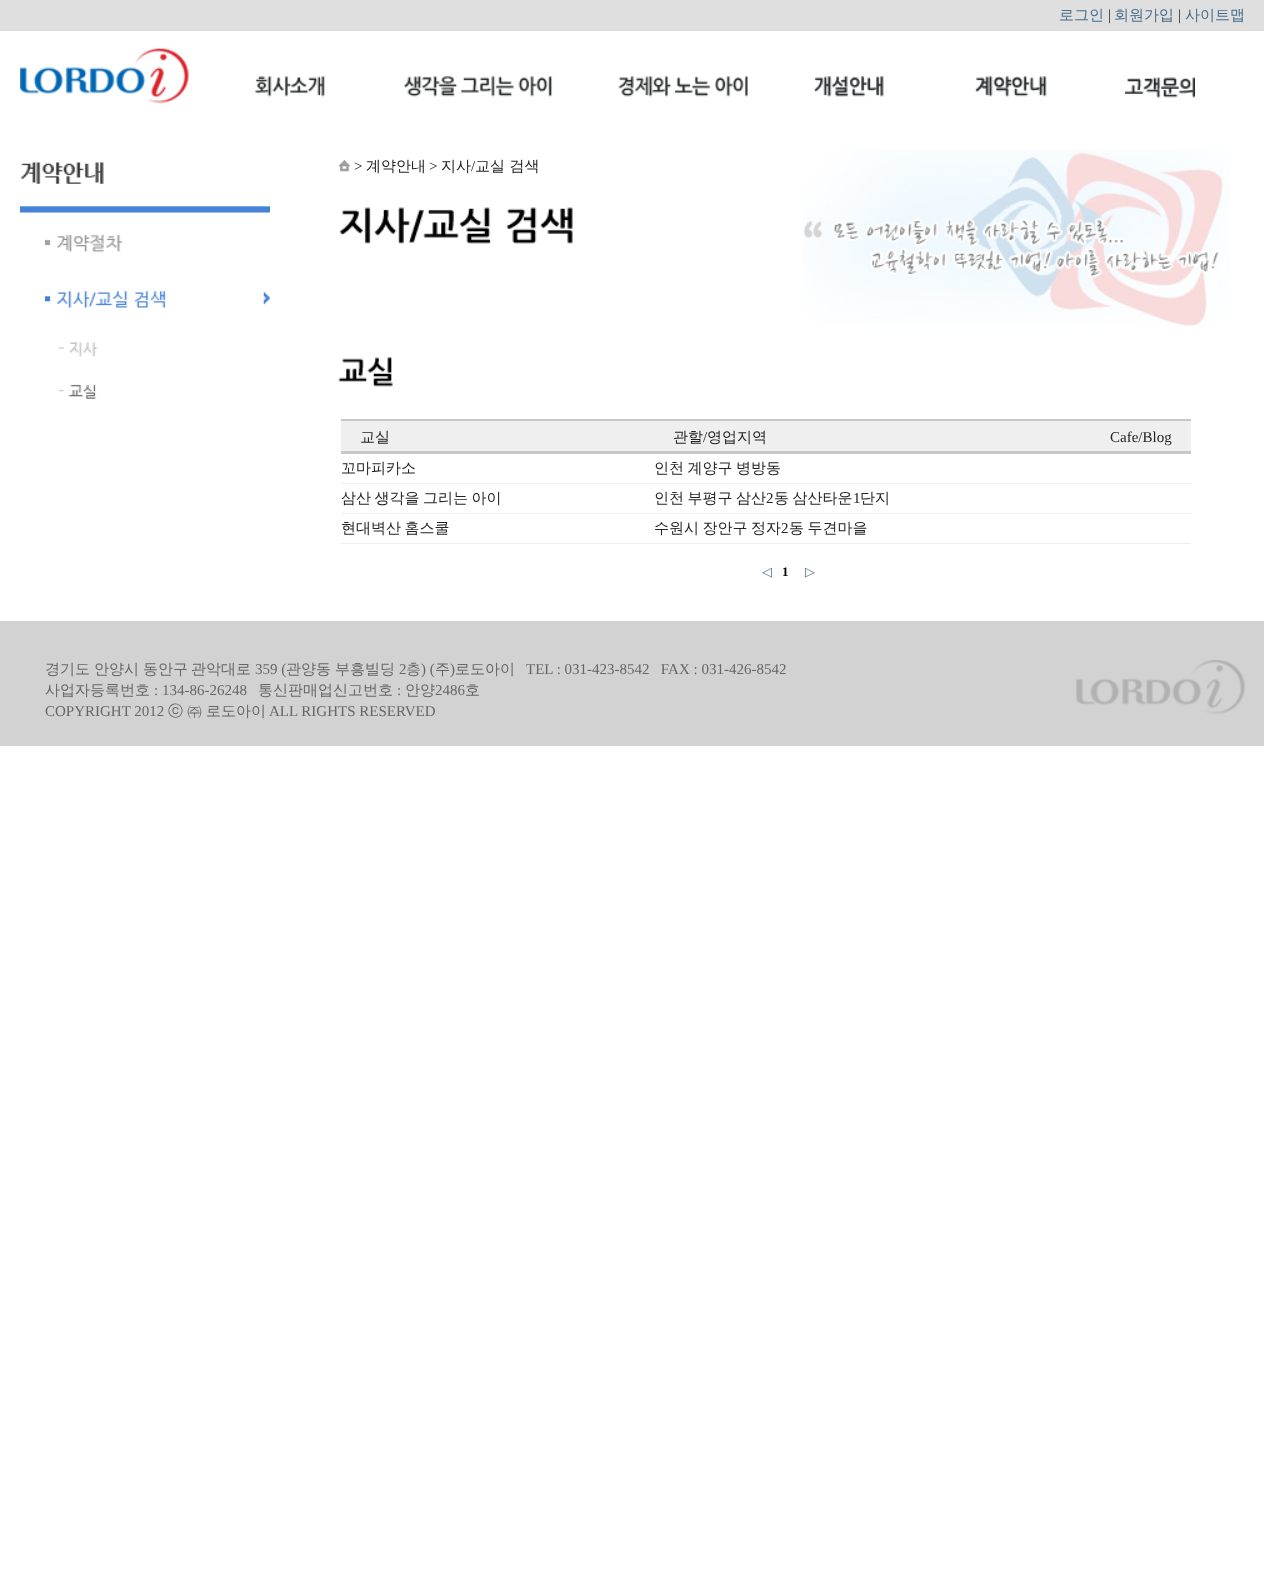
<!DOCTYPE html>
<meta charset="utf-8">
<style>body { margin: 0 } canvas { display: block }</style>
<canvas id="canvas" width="1264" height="1579"></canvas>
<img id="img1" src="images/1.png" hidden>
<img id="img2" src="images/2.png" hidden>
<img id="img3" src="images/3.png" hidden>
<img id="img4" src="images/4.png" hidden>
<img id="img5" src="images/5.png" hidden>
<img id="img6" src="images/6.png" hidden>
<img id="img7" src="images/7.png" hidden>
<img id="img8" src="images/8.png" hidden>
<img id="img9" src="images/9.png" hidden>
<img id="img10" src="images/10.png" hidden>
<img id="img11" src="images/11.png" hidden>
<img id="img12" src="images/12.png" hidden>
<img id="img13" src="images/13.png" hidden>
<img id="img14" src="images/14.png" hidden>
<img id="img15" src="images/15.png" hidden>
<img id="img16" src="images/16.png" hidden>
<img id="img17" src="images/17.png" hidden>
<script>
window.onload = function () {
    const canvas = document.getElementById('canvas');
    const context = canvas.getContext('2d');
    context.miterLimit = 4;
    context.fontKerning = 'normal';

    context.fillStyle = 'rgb(255, 255, 255)';
    context.fillRect(0, 0, 1264, 1579);
    context.fillStyle = 'rgb(223, 223, 223)';
    context.fillRect(0, 0, 1264, 31);
    context.drawImage(document.getElementById('img1'), 20, 48, 169, 56);
    context.drawImage(document.getElementById('img2'), 255, 76, 70, 21);
    context.drawImage(document.getElementById('img3'), 403, 76, 150, 21);
    context.drawImage(document.getElementById('img4'), 618, 76, 130, 21);
    context.drawImage(document.getElementById('img5'), 813, 76, 71, 21);
    context.drawImage(document.getElementById('img6'), 975, 76, 72, 21);
    context.drawImage(document.getElementById('img7'), 1125, 77, 70, 21);
    context.drawImage(document.getElementById('img8'), 20, 162, 250, 51);
    context.drawImage(document.getElementById('img9'), 45, 234, 78, 19);
    context.drawImage(document.getElementById('img10'), 45, 291, 225, 17);
    context.drawImage(document.getElementById('img11'), 58, 342, 40, 15);
    context.drawImage(document.getElementById('img12'), 58, 384, 39, 15);
    context.drawImage(document.getElementById('img13'), 803, 150, 426, 176);
    context.drawImage(document.getElementById('img14'), 338, 160, 12, 12);
    context.drawImage(document.getElementById('img15'), 339, 207, 234, 37);
    context.drawImage(document.getElementById('img16'), 338, 357, 55, 30);
    context.fillStyle = 'rgb(200, 200, 200)';
    context.fillRect(341, 419, 850, 2);
    context.fillStyle = 'rgb(239, 239, 239)';
    context.fillRect(341, 421, 850, 30);
    context.fillStyle = 'rgb(200, 200, 200)';
    context.fillRect(341, 451, 850, 3);
    context.fillStyle = 'rgb(239, 239, 239)';
    context.fillRect(341, 483, 850, 1);
    context.fillRect(341, 513, 850, 1);
    context.fillRect(341, 543, 850, 1);
    context.fillStyle = 'rgb(210, 210, 210)';
    context.fillRect(0, 621, 1264, 125);
    context.drawImage(document.getElementById('img17'), 1076, 660, 169, 54);
    context.font = '500 15px WenQuanYi Zen Hei';
    context.fillStyle = 'rgb(70, 108, 138)';
    context.fillText('로그인', 1059, 20);
    context.font = '15px Liberation Serif';
    context.fillStyle = 'rgb(34, 34, 34)';
    context.fillText('|', 1108, 20);
    context.font = '500 15px WenQuanYi Zen Hei';
    context.fillStyle = 'rgb(70, 108, 138)';
    context.fillText('회원가입', 1114, 20);
    context.font = '15px Liberation Serif';
    context.fillStyle = 'rgb(34, 34, 34)';
    context.fillText('|', 1178, 20);
    context.font = '500 15px WenQuanYi Zen Hei';
    context.fillStyle = 'rgb(70, 108, 138)';
    context.fillText('사이트맵', 1185, 20);
    context.font = '15px Liberation Serif';
    context.fillStyle = 'rgb(34, 34, 34)';
    context.fillText('>', 354, 171);
    context.font = '500 15px WenQuanYi Zen Hei';
    context.fillText('계약안내', 366, 171);
    context.font = '15px Liberation Serif';
    context.fillText('>', 429, 171);
    context.font = '500 15px WenQuanYi Zen Hei';
    context.fillText('지사', 441, 171);
    context.font = '15px Liberation Serif';
    context.fillText('/', 471, 171);
    context.font = '500 15px WenQuanYi Zen Hei';
    context.fillText('교실 검색', 475, 171);
    context.fillText('교실', 360, 442);
    context.fillText('관할', 673, 442);
    context.font = '15px Liberation Serif';
    context.fillText('/', 703, 442);
    context.font = '500 15px WenQuanYi Zen Hei';
    context.fillText('영업지역', 707, 442);
    context.font = '15px Liberation Serif';
    context.fillText('Cafe/Blog', 1110, 442);
    context.font = '500 15px WenQuanYi Zen Hei';
    context.fillText('꼬마피카소', 341, 473);
    context.wordSpacing = '-1px';
    context.fillText('인천 계양구 병방동', 654, 473);
    context.fillText('삼산 생각을 그리는 아이', 341, 503);
    context.fillText('인천 부평구 삼산', 654, 503);
    context.wordSpacing = '0px';
    context.font = '15px Liberation Serif';
    context.fillText('2', 766, 503);
    context.wordSpacing = '-1px';
    context.font = '500 15px WenQuanYi Zen Hei';
    context.fillText('동 삼산타운', 774, 503);
    context.wordSpacing = '0px';
    context.font = '15px Liberation Serif';
    context.fillText('1', 853, 503);
    context.font = '500 15px WenQuanYi Zen Hei';
    context.fillText('단지', 860, 503);
    context.wordSpacing = '-1px';
    context.fillText('현대벽산 홈스쿨', 341, 533);
    context.fillText('수원시 장안구 정자', 654, 533);
    context.wordSpacing = '0px';
    context.font = '15px Liberation Serif';
    context.fillText('2', 781, 533);
    context.wordSpacing = '-1px';
    context.font = '500 15px WenQuanYi Zen Hei';
    context.fillText('동 두견마을', 789, 533);
    context.wordSpacing = '0px';
    context.font = '13px DejaVu Sans';
    context.fillStyle = 'rgb(70, 108, 138)';
    context.fillText('◁', 762, 576);
    context.font = 'bold 13px Liberation Serif';
    context.fillStyle = 'rgb(0, 0, 0)';
    context.fillText('1', 782, 576);
    context.font = '13px DejaVu Sans';
    context.fillStyle = 'rgb(70, 108, 138)';
    context.fillText('▷', 805, 576);
    context.font = '500 15px WenQuanYi Zen Hei';
    context.fillStyle = 'rgb(102, 102, 102)';
    context.fillText('경기도', 45, 674);
    context.fillText('안양시', 94, 674);
    context.fillText('동안구', 143, 674);
    context.fillText('관악대로', 191, 674);
    context.font = '15px Liberation Serif';
    context.fillText('359 (', 255, 674);
    context.font = '500 15px WenQuanYi Zen Hei';
    context.fillText('관양동', 286, 674);
    context.fillText('부흥빌딩', 335, 674);
    context.font = '15px Liberation Serif';
    context.fillText('2', 399, 674);
    context.font = '500 15px WenQuanYi Zen Hei';
    context.fillText('층', 406, 674);
    context.font = '15px Liberation Serif';
    context.fillText(') (', 421, 674);
    context.font = '500 15px WenQuanYi Zen Hei';
    context.fillText('주', 435, 674);
    context.font = '15px Liberation Serif';
    context.fillText(')', 450, 674);
    context.font = '500 15px WenQuanYi Zen Hei';
    context.fillText('로도아이', 455, 674);
    context.font = '15px Liberation Serif';
    context.fillText('TEL : 031-423-8542   FAX : 031-426-8542', 526, 674);
    context.font = '500 15px WenQuanYi Zen Hei';
    context.fillText('사업자등록번호', 45, 695);
    context.font = '15px Liberation Serif';
    context.fillText(': 134-86-26248', 154, 695);
    context.font = '500 15px WenQuanYi Zen Hei';
    context.fillText('통신판매업신고번호', 258, 695);
    context.font = '15px Liberation Serif';
    context.fillText(':', 397, 695);
    context.font = '500 15px WenQuanYi Zen Hei';
    context.fillText('안양', 405, 695);
    context.font = '15px Liberation Serif';
    context.fillText('2486', 435, 695);
    context.font = '500 15px WenQuanYi Zen Hei';
    context.fillText('호', 465, 695);
    context.font = '15px Liberation Serif';
    context.fillText('COPYRIGHT 2012', 45, 716);
    context.font = '500 15px WenQuanYi Zen Hei';
    context.fillText('ⓒ', 168, 716);
    context.fillText('㈜', 187, 716);
    context.fillText('로도아이', 206, 716);
    context.font = '15px Liberation Serif';
    context.fillText('ALL RIGHTS RESERVED', 269, 716);
};
</script>
